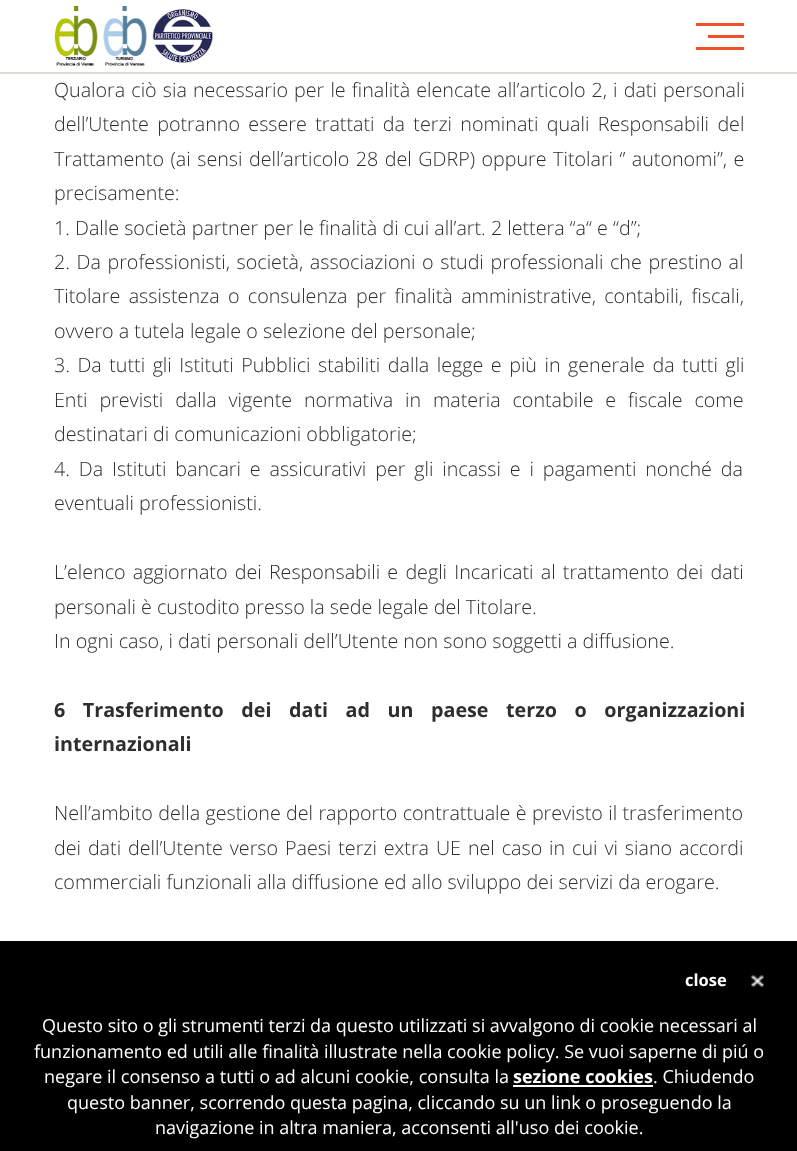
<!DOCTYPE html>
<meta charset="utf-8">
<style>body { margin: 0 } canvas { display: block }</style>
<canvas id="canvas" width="797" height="1151"></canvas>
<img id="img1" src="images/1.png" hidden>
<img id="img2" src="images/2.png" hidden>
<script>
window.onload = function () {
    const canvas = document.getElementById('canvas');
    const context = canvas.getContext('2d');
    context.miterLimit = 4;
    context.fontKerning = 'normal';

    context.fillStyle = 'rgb(255, 255, 255)';
    context.fillRect(0, 0, 797, 1151);
    context.fillStyle = 'rgb(219, 221, 208)';
    context.fillRect(0, 72, 797, 2);
    context.drawImage(document.getElementById('img1'), 54, 6, 159, 60);
    context.fillStyle = 'rgb(241, 79, 41)';
    context.fillRect(696, 23, 48, 3);
    context.fillRect(708, 35, 36, 3);
    context.fillRect(696, 47, 48, 3);
    context.fillStyle = 'rgb(0, 0, 0)';
    context.fillRect(0, 941, 797, 210);
    context.drawImage(document.getElementById('img2'), 751, 975, 13, 12);
    context.fillStyle = 'rgb(255, 255, 255)';
    context.fillRect(513, 1085, 140, 2);
    context.wordSpacing = '1px';
    context.font = '300 19.7px Open Sans';
    context.fillStyle = 'rgb(46, 46, 46)';
    context.fillText('Qualora ciò sia necessario per le finalità elencate all’articolo 2, i dati personali', 54, 97);
    context.wordSpacing = '3.25px';
    context.fillText('dell’Utente potranno essere trattati da terzi nominati quali Responsabili del', 54, 131);
    context.wordSpacing = '1.4px';
    context.fillText('Trattamento (ai sensi dell’articolo 28 del GDRP) oppure Titolari ‘’ autonomi”, e', 54, 166);
    context.wordSpacing = '0px';
    context.fillText('precisamente:', 54, 200);
    context.fillText('1. Dalle società partner per le finalità di cui all’art. 2 lettera “a“ e “d”;', 54, 235);
    context.wordSpacing = '1.5px';
    context.fillText('2. Da professionisti, società, associazioni o studi professionali che prestino al', 54, 269);
    context.wordSpacing = '3.25px';
    context.fillText('Titolare assistenza o consulenza per finalità amministrative, contabili, fiscali,', 54, 303);
    context.wordSpacing = '0px';
    context.fillText('ovvero a tutela legale o selezione del personale;', 54, 338);
    context.wordSpacing = '2.4px';
    context.fillText('3. Da tutti gli Istituti Pubblici stabiliti dalla legge e più in generale da tutti gli', 54, 372);
    context.wordSpacing = '6.75px';
    context.fillText('Enti previsti dalla vigente normativa in materia contabile e fiscale come', 54, 407);
    context.wordSpacing = '0px';
    context.fillText('destinatari di comunicazioni obbligatorie;', 54, 441);
    context.wordSpacing = '3.75px';
    context.fillText('4. Da Istituti bancari e assicurativi per gli incassi e i pagamenti nonché da', 54, 476);
    context.wordSpacing = '0px';
    context.fillText('eventuali professionisti.', 54, 510);
    context.wordSpacing = '2.1px';
    context.fillText('L’elenco aggiornato dei Responsabili e degli Incaricati al trattamento dei dati', 54, 579);
    context.wordSpacing = '0px';
    context.fillText('personali è custodito presso la sede legale del Titolare.', 54, 614);
    context.fillText('In ogni caso, i dati personali dell’Utente non sono soggetti a diffusione.', 54, 648);
    context.wordSpacing = '12.5px';
    context.font = 'bold 19.7px Open Sans';
    context.fillText('6 Trasferimento dei dati ad un paese terzo o organizzazioni', 54, 717);
    context.wordSpacing = '0px';
    context.fillText('internazionali', 54, 751);
    context.wordSpacing = '0.25px';
    context.font = '300 19.7px Open Sans';
    context.fillText('Nell’ambito della gestione del rapporto contrattuale è previsto il trasferimento', 54, 820);
    context.wordSpacing = '1.8px';
    context.fillText('dei dati dell’Utente verso Paesi terzi extra UE nel caso in cui vi siano accordi', 54, 855);
    context.wordSpacing = '0px';
    context.fillText('commerciali funzionali alla diffusione ed allo sviluppo dei servizi da erogare.', 54, 889);
    context.font = 'bold 16.5px Open Sans';
    context.fillStyle = 'rgb(255, 255, 255)';
    context.fillText('close', 685, 986);
    context.font = '18px Open Sans';
    context.fillText('Questo sito o gli strumenti terzi da questo utilizzati si avvalgono di cookie necessari al', 42, 1032);
    context.fillText('funzionamento ed utili alle finalità illustrate nella cookie policy. Se vuoi saperne di piú o', 34, 1058);
    context.fillText('negare il consenso a tutti o ad alcuni cookie, consulta la', 44, 1083);
    context.font = 'bold 18px Open Sans';
    context.fillText('sezione cookies', 513, 1083);
    context.font = '18px Open Sans';
    context.fillText('. Chiudendo', 653, 1083);
    context.fillText('questo banner, scorrendo questa pagina, cliccando su un link o proseguendo la', 67, 1109);
    context.fillText('navigazione in altra maniera, acconsenti all\'uso dei cookie.', 155, 1134);
};
</script>
